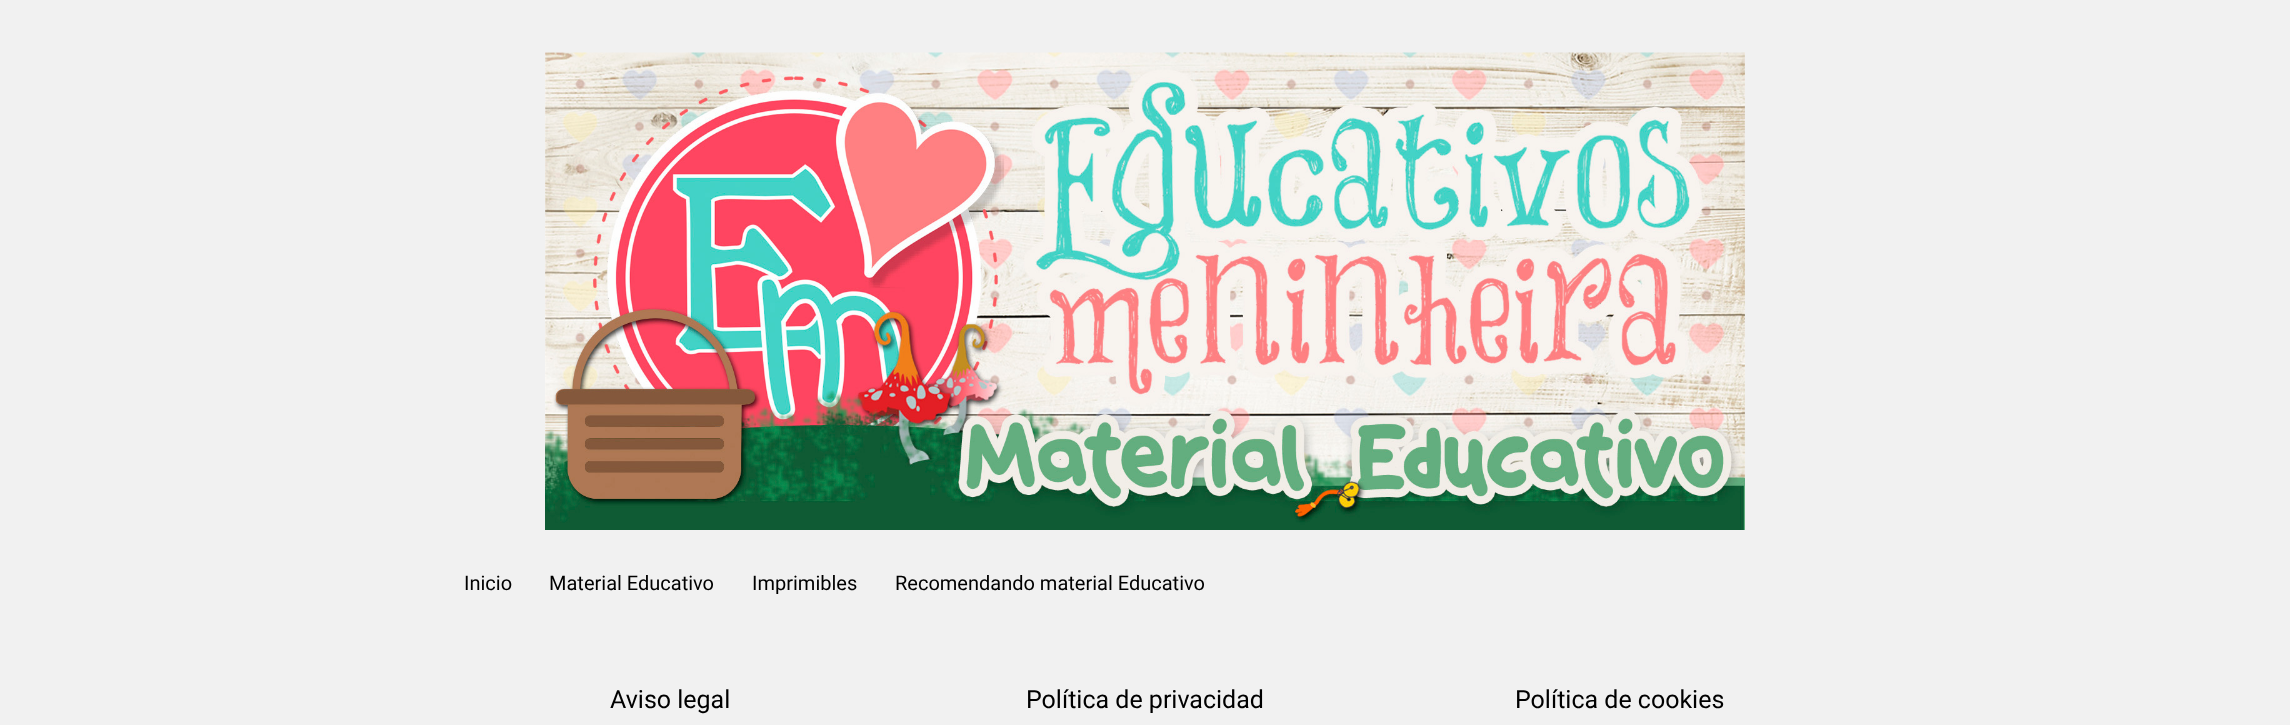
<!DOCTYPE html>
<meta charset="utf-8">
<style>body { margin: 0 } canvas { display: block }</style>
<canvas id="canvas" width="2290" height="725"></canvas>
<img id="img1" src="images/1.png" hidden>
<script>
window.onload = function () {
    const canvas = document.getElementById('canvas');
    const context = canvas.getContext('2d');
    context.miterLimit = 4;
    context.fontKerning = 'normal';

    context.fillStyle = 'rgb(241, 241, 241)';
    context.fillRect(0, 0, 2290, 725);
    context.drawImage(document.getElementById('img1'), 545, 52, 1200, 478);
    context.font = '20px Roboto';
    context.fillStyle = 'rgb(0, 0, 0)';
    context.fillText('Inicio', 464, 590);
    context.fillText('Material Educativo', 549, 590);
    context.fillText('Imprimibles', 752, 590);
    context.fillText('Recomendando material Educativo', 895, 590);
    context.font = '25px Roboto';
    context.fillText('Aviso legal', 610, 708);
    context.fillText('Política de privacidad', 1026, 708);
    context.fillText('Política de cookies', 1515, 708);
};
</script>
